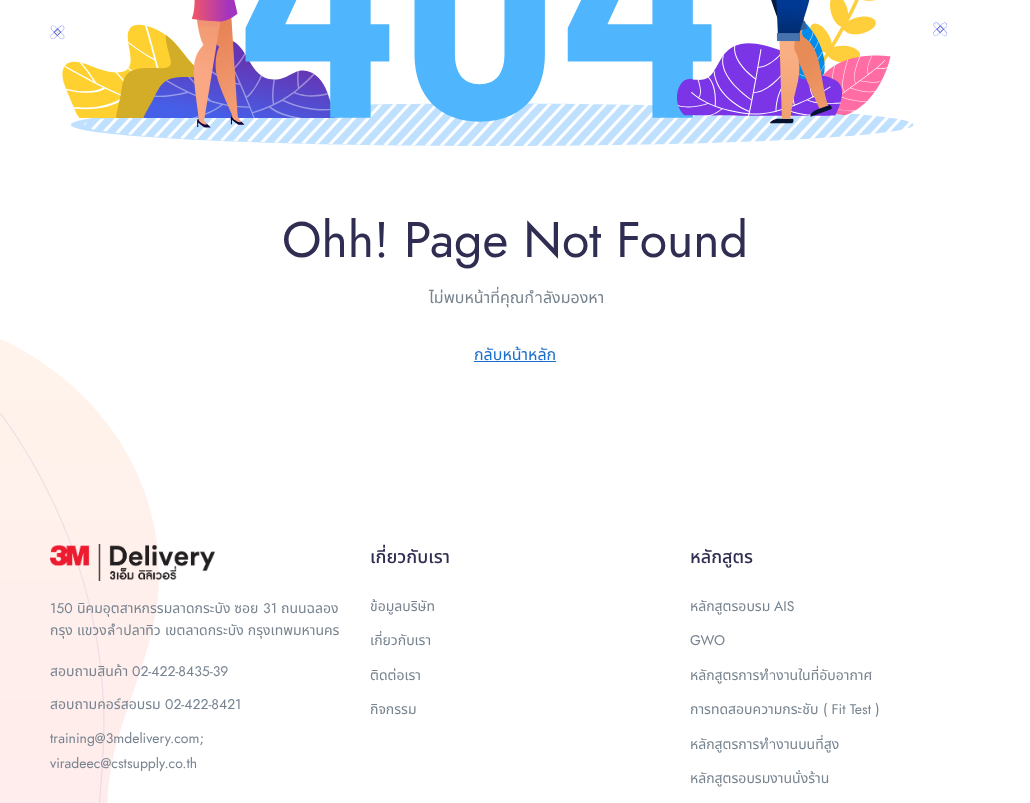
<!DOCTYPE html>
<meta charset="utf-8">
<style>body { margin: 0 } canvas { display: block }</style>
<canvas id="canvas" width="1030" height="803"></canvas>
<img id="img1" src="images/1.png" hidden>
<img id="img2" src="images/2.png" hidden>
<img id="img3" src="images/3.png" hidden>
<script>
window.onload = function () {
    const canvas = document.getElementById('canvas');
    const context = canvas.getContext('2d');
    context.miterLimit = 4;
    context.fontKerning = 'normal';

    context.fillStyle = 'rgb(255, 255, 255)';
    context.fillRect(0, 0, 1030, 803);
    context.drawImage(document.getElementById('img1'), 50, 0, 898, 146);
    context.fillStyle = 'rgb(25, 110, 205)';
    context.fillRect(474, 361, 82, 1);
    context.drawImage(document.getElementById('img2'), 0, 339, 159, 464);
    context.drawImage(document.getElementById('img3'), 50, 544, 165, 37);
    context.font = '50px Jost';
    context.fillStyle = 'rgb(47, 45, 81)';
    context.fillText('Ohh! Page Not Found', 282, 257);
    context.font = '16px Noto Sans Thai';
    context.fillStyle = 'rgb(119, 131, 143)';
    context.fillText('ไม่พบหน้าที่คุณกำลังมองหา', 429, 303);
    context.fillStyle = 'rgb(25, 110, 205)';
    context.fillText('กลับหน้าหลัก', 474, 360);
    context.font = '14px Jost';
    context.fillStyle = 'rgb(119, 131, 143)';
    context.fillText('150', 50, 613);
    context.font = '14px Noto Sans Thai';
    context.fillText('นิคมอุตสาหกรรมลาดกระบัง ซอย', 77, 613);
    context.font = '14px Jost';
    context.fillText('31', 263, 613);
    context.font = '14px Noto Sans Thai';
    context.fillText('ถนนฉลอง', 281, 613);
    context.wordSpacing = '0.5px';
    context.fillText('กรุง แขวงลำปลาทิว เขตลาดกระบัง กรุงเทพมหานคร', 50, 635);
    context.wordSpacing = '0px';
    context.fillText('สอบถามสินค้า', 50, 676);
    context.font = '14px Jost';
    context.fillText('02-422-8435-39', 132, 676);
    context.font = '14px Noto Sans Thai';
    context.fillText('สอบถามคอร์สอบรม', 50, 709);
    context.font = '14px Jost';
    context.fillText('02-422-8421', 165, 709);
    context.fillText('training@3mdelivery.com;', 50, 743);
    context.fillText('viradeec@cstsupply.co.th', 50, 768);
    context.font = '500 18px Noto Sans Thai';
    context.fillStyle = 'rgb(47, 45, 81)';
    context.fillText('เกี่ยวกับเรา', 370, 563);
    context.font = '14px Noto Sans Thai';
    context.fillStyle = 'rgb(119, 131, 143)';
    context.fillText('ข้อมูลบริษัท', 370, 611);
    context.fillText('เกี่ยวกับเรา', 370, 645);
    context.fillText('ติดต่อเรา', 370, 680);
    context.fillText('กิจกรรม', 370, 714);
    context.font = '500 18px Noto Sans Thai';
    context.fillStyle = 'rgb(47, 45, 81)';
    context.fillText('หลักสูตร', 690, 563);
    context.font = '14px Noto Sans Thai';
    context.fillStyle = 'rgb(119, 131, 143)';
    context.fillText('หลักสูตรอบรม', 690, 611);
    context.font = '14px Jost';
    context.fillText('AIS', 774, 611);
    context.fillText('GWO', 690, 645);
    context.font = '14px Noto Sans Thai';
    context.fillText('หลักสูตรการทำงานในที่อับอากาศ', 690, 680);
    context.fillText('การทดสอบความกระชับ', 690, 714);
    context.font = '14px Jost';
    context.fillText('( Fit Test )', 823, 714);
    context.font = '14px Noto Sans Thai';
    context.fillText('หลักสูตรการทำงานบนที่สูง', 690, 749);
    context.fillText('หลักสูตรอบรมงานนั่งร้าน', 690, 783);
};
</script>
